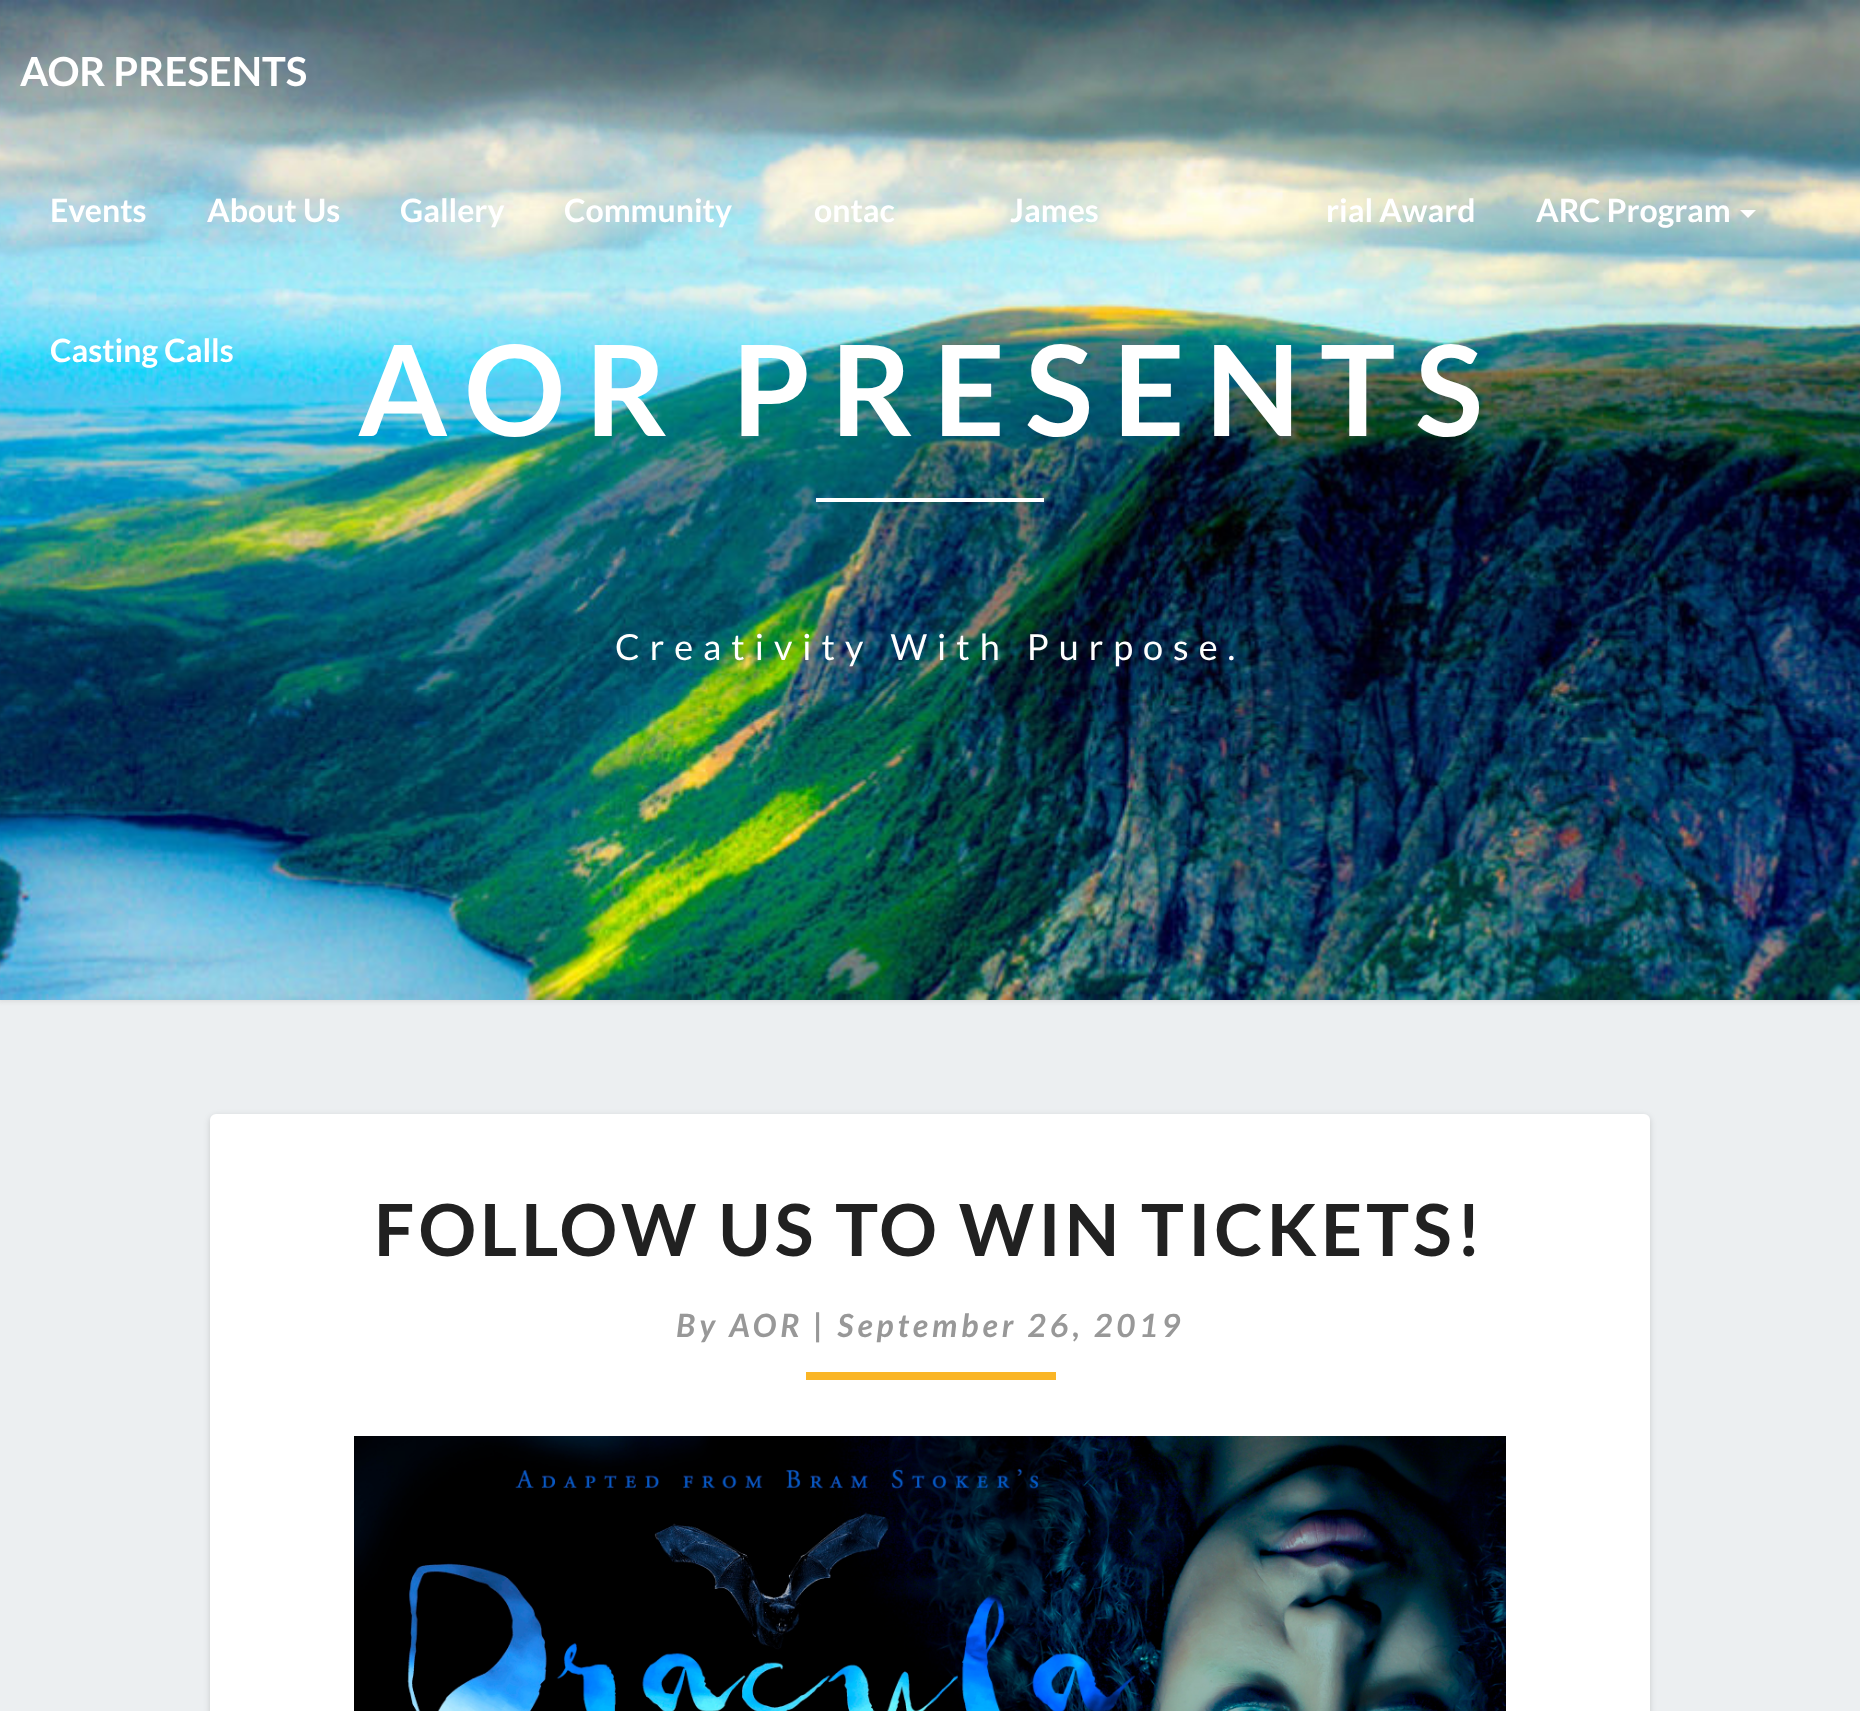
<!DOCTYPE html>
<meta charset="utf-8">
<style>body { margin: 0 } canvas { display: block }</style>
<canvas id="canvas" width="1860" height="1711"></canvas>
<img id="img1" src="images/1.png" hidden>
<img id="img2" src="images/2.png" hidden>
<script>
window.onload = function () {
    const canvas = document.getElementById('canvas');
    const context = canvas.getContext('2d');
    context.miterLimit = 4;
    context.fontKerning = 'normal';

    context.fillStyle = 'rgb(236, 239, 241)';
    context.fillRect(0, 0, 1860, 1711);
    context.fillStyle = 'rgba(182, 182, 182, 0.3)';
    context.filter = 'blur(2px)';
    context.beginPath();
    context.rect(-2, -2, 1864, 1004);
    context.fill();
    context.filter = 'none';
    context.drawImage(document.getElementById('img1'), 0, 0, 1860, 1000);
    context.fillStyle = 'rgb(255, 255, 255)';
    context.beginPath();
    context.moveTo(1740, 210);
    context.lineTo(1756, 210);
    context.lineTo(1748, 218);
    context.closePath();
    context.fill();
    context.fillRect(816, 498, 228, 4);
    context.fillStyle = 'rgba(0, 0, 0, 0.15)';
    context.filter = 'blur(3px)';
    context.beginPath();
    context.roundRect(210, 1116, 1440, 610, 6);
    context.fill();
    context.filter = 'none';
    context.fillStyle = 'rgb(255, 255, 255)';
    context.beginPath();
    context.roundRect(210, 1114, 1440, 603, 6);
    context.fill();
    context.fillStyle = 'rgb(250, 181, 38)';
    context.fillRect(806, 1372, 250, 8);
    context.drawImage(document.getElementById('img2'), 354, 1436, 1152, 275);
    context.font = 'bold 40px Lato';
    context.fillStyle = 'rgb(255, 255, 255)';
    context.fillText('AOR PRESENTS', 20, 86);
    context.font = 'bold 32px Lato';
    context.fillText('Events', 50, 222);
    context.fillText('About Us', 207, 222);
    context.fillText('Gallery', 400, 222);
    context.fillText('Community', 564, 222);
    context.fillText('ontac', 814, 222);
    context.fillText('James', 1010, 222);
    context.fillText('rial Award', 1326, 222);
    context.fillText('ARC Program', 1536, 222);
    context.fillText('Casting Calls', 50, 362);
    context.letterSpacing = '20px';
    context.font = 'bold 126px Lato';
    context.fillText('AOR PRESENTS', 358, 436);
    context.letterSpacing = '10px';
    context.font = '36px Lato';
    context.fillText('Creativity With Purpose.', 615, 660);
    context.letterSpacing = '4px';
    context.font = 'bold 72px Lato';
    context.fillStyle = 'rgb(33, 33, 33)';
    context.fillText('FOLLOW US TO WIN TICKETS!', 374, 1256);
    context.font = 'italic bold 32px Lato';
    context.fillStyle = 'rgb(152, 152, 152)';
    context.fillText('By AOR | September 26, 2019', 676, 1337);
};
</script>
